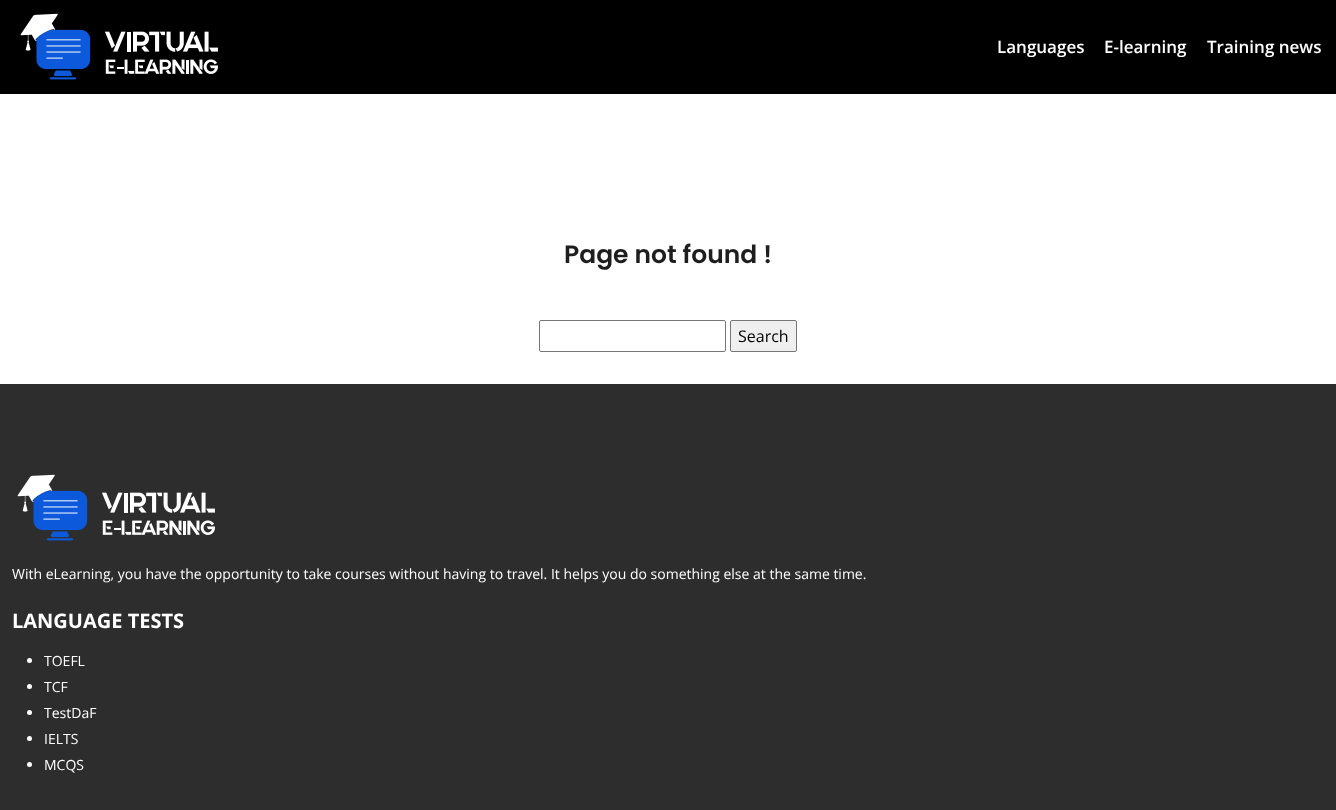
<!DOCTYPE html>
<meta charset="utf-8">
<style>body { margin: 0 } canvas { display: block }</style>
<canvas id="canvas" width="1336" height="810"></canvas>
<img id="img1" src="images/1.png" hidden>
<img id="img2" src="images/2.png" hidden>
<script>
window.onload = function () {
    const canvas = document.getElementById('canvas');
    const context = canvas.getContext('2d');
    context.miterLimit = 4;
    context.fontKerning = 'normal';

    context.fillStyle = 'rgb(255, 255, 255)';
    context.fillRect(0, 0, 1336, 810);
    context.fillStyle = 'rgb(0, 0, 0)';
    context.fillRect(0, 0, 1336, 94);
    context.drawImage(document.getElementById('img1'), 20, 13, 198, 67);
    context.beginPath();
    context.roundRect(539.5, 320.5, 186, 31, 1.5);
    context.strokeStyle = 'rgb(118, 118, 118)';
    context.stroke();
    context.fillStyle = 'rgb(239, 239, 239)';
    context.beginPath();
    context.roundRect(730.5, 320.5, 66, 31, 1.5);
    context.fill();
    context.stroke();
    context.fillStyle = 'rgb(45, 45, 45)';
    context.fillRect(0, 384, 1336, 426);
    context.drawImage(document.getElementById('img2'), 17, 474, 198, 67);
    context.fillStyle = 'rgb(255, 255, 255)';
    context.beginPath();
    context.arc(29.5, 660.5, 2.5, 0, 2 * Math.PI);
    context.fill();
    context.beginPath();
    context.arc(29.5, 686.5, 2.5, 0, 2 * Math.PI);
    context.fill();
    context.beginPath();
    context.arc(29.5, 712.5, 2.5, 0, 2 * Math.PI);
    context.fill();
    context.beginPath();
    context.arc(29.5, 738.5, 2.5, 0, 2 * Math.PI);
    context.fill();
    context.beginPath();
    context.arc(29.5, 764.5, 2.5, 0, 2 * Math.PI);
    context.fill();
    context.font = '600 17px Open Sans';
    context.fillText('Languages', 997, 53);
    context.fillText('E-learning', 1104, 53);
    context.fillText('Training news', 1207, 53);
    context.font = '600 25px Poppins';
    context.fillStyle = 'rgb(30, 30, 30)';
    context.fillText('Page not found !', 564, 263);
    context.font = '16px Open Sans';
    context.fillStyle = 'rgb(0, 0, 0)';
    context.fillText('Search', 738, 342);
    context.font = '14px Open Sans';
    context.fillStyle = 'rgb(255, 255, 255)';
    context.fillText('With eLearning, you have the opportunity to take courses without having to travel. It helps you do something else at the same time.', 12, 579);
    context.font = 'bold 20px Open Sans';
    context.fillText('LANGUAGE TESTS', 12, 628);
    context.font = '14px Open Sans';
    context.fillText('TOEFL', 44, 666);
    context.fillText('TCF', 44, 692);
    context.fillText('TestDaF', 44, 718);
    context.fillText('IELTS', 44, 744);
    context.fillText('MCQS', 44, 770);
};
</script>
